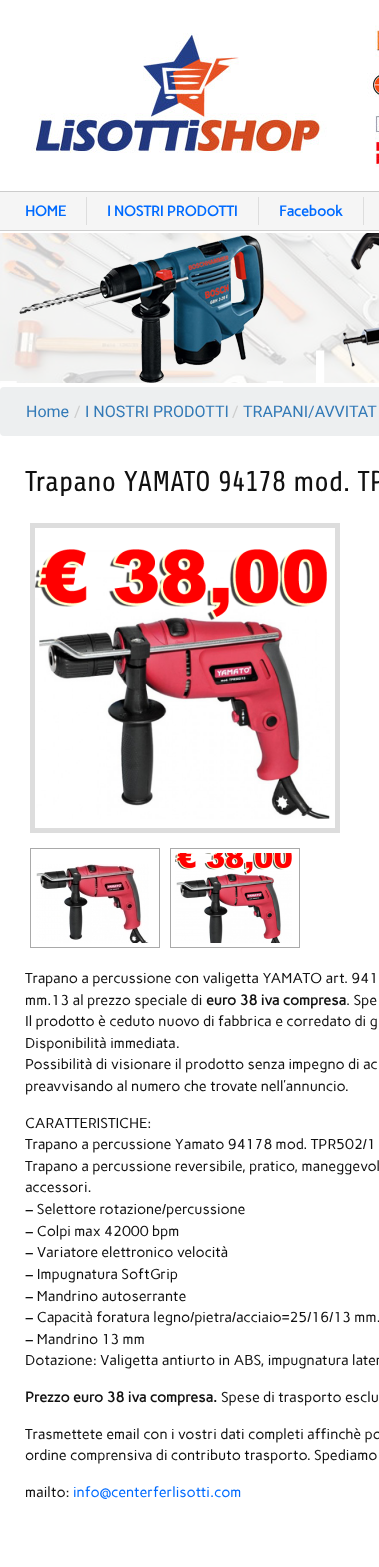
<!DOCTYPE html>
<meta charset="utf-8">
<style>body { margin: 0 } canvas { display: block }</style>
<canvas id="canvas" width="379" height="1567"></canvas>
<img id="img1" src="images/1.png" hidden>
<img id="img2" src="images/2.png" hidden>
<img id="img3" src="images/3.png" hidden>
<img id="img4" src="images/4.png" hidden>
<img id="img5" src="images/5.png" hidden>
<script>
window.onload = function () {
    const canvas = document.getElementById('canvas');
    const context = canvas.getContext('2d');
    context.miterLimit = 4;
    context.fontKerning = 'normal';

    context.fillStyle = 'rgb(255, 255, 255)';
    context.fillRect(0, 0, 379, 1567);
    context.drawImage(document.getElementById('img1'), 31, 25, 348, 142);
    context.fillStyle = 'rgb(245, 245, 245)';
    context.fillRect(0, 192, 379, 38);
    context.fillStyle = 'rgb(204, 204, 204)';
    context.fillRect(0, 191, 379, 1);
    context.fillRect(0, 230, 379, 1);
    context.fillStyle = 'rgb(221, 221, 221)';
    context.fillRect(86, 197, 1, 28);
    context.fillRect(258, 197, 1, 28);
    context.fillRect(363, 197, 1, 28);
    context.drawImage(document.getElementById('img2'), 0, 233, 379, 150);
    context.fillStyle = 'rgb(237, 239, 240)';
    context.beginPath();
    context.roundRect(0, 387, 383, 49, 4);
    context.fill();
    context.strokeStyle = 'rgb(221, 221, 221)';
    context.lineWidth = 5;
    context.strokeRect(32.5, 525.5, 305, 305);
    context.drawImage(document.getElementById('img3'), 35, 549, 295, 270);
    context.strokeStyle = 'rgb(169, 169, 169)';
    context.lineWidth = 1;
    context.strokeRect(30.5, 848.5, 129, 99);
    context.drawImage(document.getElementById('img4'), 36, 864, 113, 79);
    context.strokeRect(170.5, 848.5, 129, 99);
    context.drawImage(document.getElementById('img5'), 175, 853, 117, 90);
    context.font = 'bold 14.4px Carme';
    context.fillStyle = 'rgb(0, 107, 255)';
    context.fillText('HOME', 25, 216);
    context.fillText('I NOSTRI PRODOTTI', 107, 216);
    context.fillText('Facebook', 279, 216);
    context.font = '16px Roboto';
    context.fillStyle = 'rgb(51, 122, 183)';
    context.fillText('Home', 26, 417);
    context.fillStyle = 'rgb(204, 204, 204)';
    context.fillText('/', 74, 417);
    context.fillStyle = 'rgb(51, 122, 183)';
    context.fillText('I NOSTRI PRODOTTI', 85, 417);
    context.fillStyle = 'rgb(204, 204, 204)';
    context.fillText('/', 232, 417);
    context.fillStyle = 'rgb(51, 122, 183)';
    context.fillText('TRAPANI/AVVITAT', 243, 417);
    context.font = '28.75px Share';
    context.fillStyle = 'rgb(17, 17, 17)';
    context.fillText('Trapano YAMATO 94178 mod. TP', 25, 491);
    context.font = '14.4px Carme';
    context.fillText('Trapano a percussione con valigetta YAMATO art. 941', 25, 983);
    context.fillText('mm.13 al prezzo speciale di', 25, 1005);
    context.font = 'bold 14.4px Carme';
    context.fillText('euro 38 iva compresa', 206, 1005);
    context.font = '14.4px Carme';
    context.fillText('. Spe', 346, 1005);
    context.fillText('Il prodotto è ceduto nuovo di fabbrica e corredato di g', 25, 1026);
    context.fillText('Disponibilità immediata.', 25, 1048);
    context.fillText('Possibilità di visionare il prodotto senza impegno di ac', 25, 1069);
    context.fillText('preavvisando al numero che trovate nell’annuncio.', 25, 1091);
    context.fillText('CARATTERISTICHE:', 25, 1128);
    context.fillText('Trapano a percussione Yamato 94178 mod. TPR502/1', 25, 1149);
    context.fillText('Trapano a percussione reversibile, pratico, maneggevol', 25, 1171);
    context.fillText('accessori.', 25, 1192);
    context.fillText('– Selettore rotazione/percussione', 25, 1214);
    context.fillText('– Colpi max 42000 bpm', 25, 1236);
    context.fillText('– Variatore elettronico velocità', 25, 1257);
    context.fillText('– Impugnatura SoftGrip', 25, 1279);
    context.fillText('– Mandrino autoserrante', 25, 1301);
    context.fillText('– Capacità foratura legno/pietra/acciaio=25/16/13 mm.', 25, 1322);
    context.fillText('– Mandrino 13 mm', 25, 1344);
    context.fillText('Dotazione: Valigetta antiurto in ABS, impugnatura later', 25, 1365);
    context.font = 'bold 14.4px Carme';
    context.fillText('Prezzo euro 38 iva compresa.', 25, 1402);
    context.font = '14.4px Carme';
    context.fillText('Spese di trasporto esclu', 221, 1402);
    context.fillText('Trasmettete email con i vostri dati completi affinchè po', 25, 1439);
    context.fillText('ordine comprensiva di contributo trasporto. Spediamo', 25, 1460);
    context.fillText('mailto:', 25, 1497);
    context.fillStyle = 'rgb(0, 107, 255)';
    context.fillText('info@centerferlisotti.com', 73, 1497);
};
</script>
